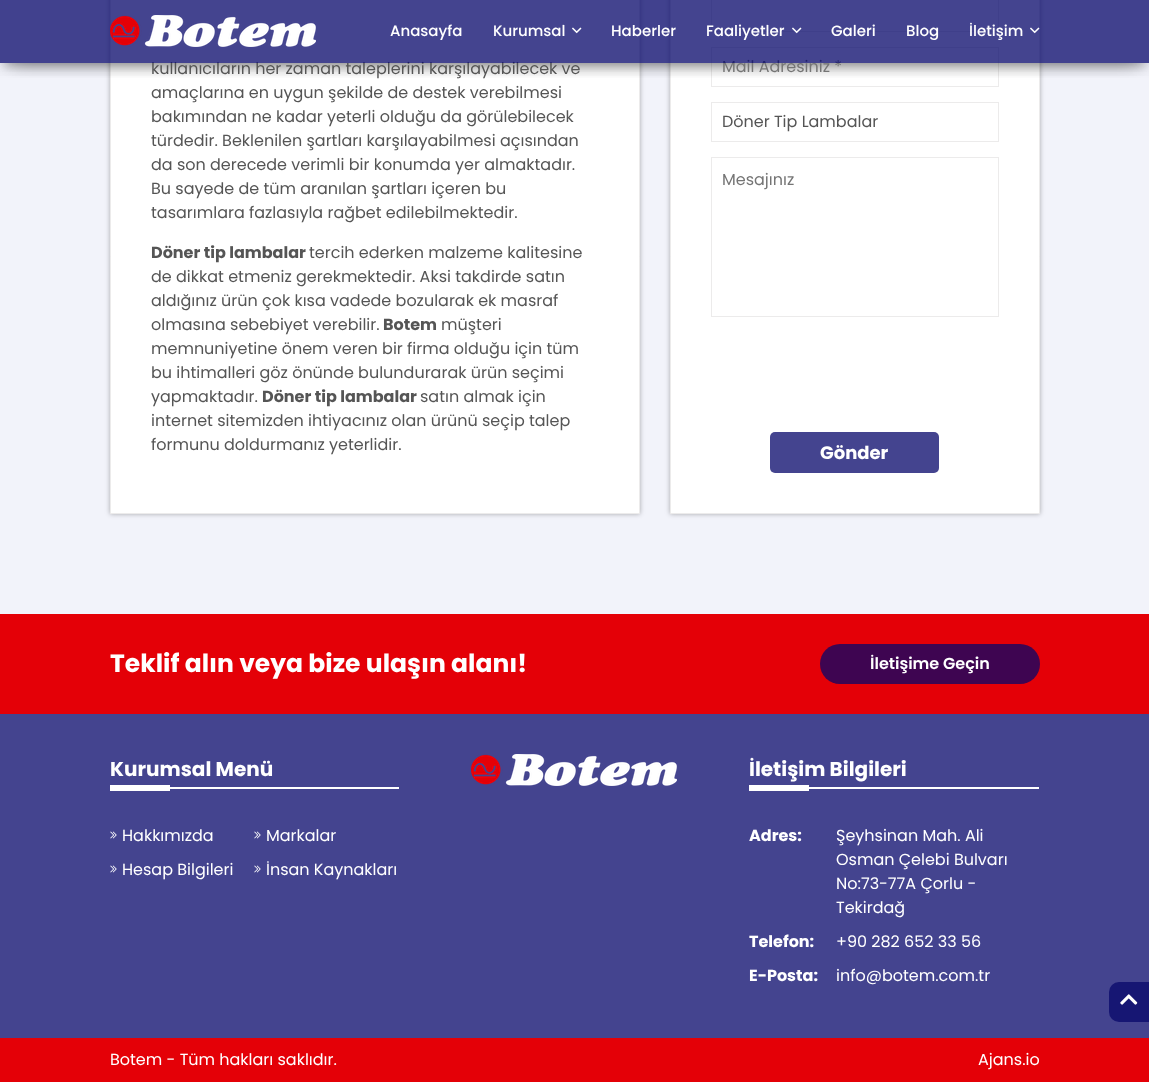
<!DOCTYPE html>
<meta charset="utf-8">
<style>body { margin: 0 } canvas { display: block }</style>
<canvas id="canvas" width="1149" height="1082"></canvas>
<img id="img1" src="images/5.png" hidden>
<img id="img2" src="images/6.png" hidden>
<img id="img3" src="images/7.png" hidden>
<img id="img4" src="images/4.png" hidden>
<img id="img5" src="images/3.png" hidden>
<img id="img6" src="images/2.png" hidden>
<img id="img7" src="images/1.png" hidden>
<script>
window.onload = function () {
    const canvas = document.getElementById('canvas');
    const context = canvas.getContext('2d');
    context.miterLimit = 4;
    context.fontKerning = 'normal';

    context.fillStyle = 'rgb(242, 243, 250)';
    context.fillRect(0, 0, 1149, 1082);
    context.fillStyle = 'rgba(0, 0, 0, 0.3)';
    context.filter = 'blur(2.5px)';
    context.beginPath();
    context.rect(110, -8, 530, 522);
    context.fill();
    context.filter = 'none';
    context.fillStyle = 'rgb(255, 255, 255)';
    context.beginPath();
    context.rect(110.5, -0.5, 529, 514);
    context.fill();
    context.strokeStyle = 'rgb(236, 235, 235)';
    context.stroke();
    context.fillStyle = 'rgba(0, 0, 0, 0.3)';
    context.filter = 'blur(2.5px)';
    context.beginPath();
    context.rect(670, -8, 370, 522);
    context.fill();
    context.filter = 'none';
    context.fillStyle = 'rgb(255, 255, 255)';
    context.beginPath();
    context.rect(670.5, -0.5, 369, 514);
    context.fill();
    context.stroke();
    context.strokeRect(711.5, -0.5, 287, 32);
    context.strokeRect(711.5, 47.5, 287, 39);
    context.save();
    context.beginPath();
    context.rect(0, 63, 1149, 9);
    context.clip();
    context.fillStyle = 'rgba(0, 0, 0, 0.2)';
    context.filter = 'blur(5px)';
    context.beginPath();
    context.rect(5, 13, 1139, 53);
    context.fill();
    context.filter = 'none';
    context.restore();
    context.save();
    context.beginPath();
    context.rect(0, 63, 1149, 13);
    context.clip();
    context.fillStyle = 'rgba(0, 0, 0, 0.12)';
    context.filter = 'blur(10px)';
    context.beginPath();
    context.rect(0, 3, 1149, 63);
    context.fill();
    context.filter = 'none';
    context.restore();
    context.save();
    context.beginPath();
    context.rect(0, 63, 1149, 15);
    context.clip();
    context.fillStyle = 'rgba(0, 0, 0, 0.42)';
    context.filter = 'blur(10px)';
    context.beginPath();
    context.rect(12, 22, 1125, 39);
    context.fill();
    context.filter = 'none';
    context.restore();
    context.strokeRect(711.5, 102.5, 287, 39);
    context.strokeRect(711.5, 157.5, 287, 159);
    context.fillStyle = 'rgb(68, 68, 143)';
    context.beginPath();
    context.roundRect(770, 432, 169, 41, 5);
    context.fill();
    context.fillStyle = 'rgb(228, 0, 7)';
    context.fillRect(0, 614, 1149, 100);
    context.fillStyle = 'rgb(62, 5, 81)';
    context.beginPath();
    context.roundRect(820, 644, 220, 40, 20);
    context.fill();
    context.fillStyle = 'rgb(68, 68, 143)';
    context.fillRect(0, 714, 1149, 324);
    context.fillStyle = 'rgb(255, 255, 255)';
    context.fillRect(110, 785, 60, 6);
    context.fillRect(170, 787, 229, 2);
    context.drawImage(document.getElementById('img1'), 110, 831, 7, 8);
    context.drawImage(document.getElementById('img1'), 254, 831, 7, 8);
    context.drawImage(document.getElementById('img1'), 110, 865, 7, 8);
    context.drawImage(document.getElementById('img1'), 254, 865, 7, 8);
    context.drawImage(document.getElementById('img2'), 471, 754, 206, 32);
    context.fillRect(749, 785, 60, 6);
    context.fillRect(809, 787, 230, 2);
    context.fillStyle = 'rgb(22, 22, 115)';
    context.beginPath();
    context.roundRect(1109, 982, 40, 40, [10, 0, 0, 10]);
    context.fill();
    context.drawImage(document.getElementById('img3'), 1120, 994, 18, 11);
    context.fillStyle = 'rgb(228, 0, 7)';
    context.fillRect(0, 1038, 1149, 44);
    context.font = '16px Poppins';
    context.fillStyle = 'rgb(85, 85, 85)';
    context.fillText('kullanıcıların her zaman taleplerini karşılayabilecek ve', 151, 74);
    context.fillText('amaçlarına en uygun şekilde de destek verebilmesi', 151, 98);
    context.fillText('bakımından ne kadar yeterli olduğu da görülebilecek', 151, 122);
    context.fillText('türdedir. Beklenilen şartları karşılayabilmesi açısından', 151, 146);
    context.fillText('da son derecede verimli bir konumda yer almaktadır.', 151, 170);
    context.fillText('Bu sayede de tüm aranılan şartları içeren bu', 151, 194);
    context.fillText('tasarımlara fazlasıyla rağbet edilebilmektedir.', 151, 218);
    context.font = 'bold 16px Poppins';
    context.fillText('Döner tip lambalar', 151, 258);
    context.font = '16px Poppins';
    context.fillText('tercih ederken malzeme kalitesine', 309, 258);
    context.fillText('de dikkat etmeniz gerekmektedir. Aksi takdirde satın', 151, 282);
    context.fillText('aldığınız ürün çok kısa vadede bozularak ek masraf', 151, 306);
    context.fillText('olmasına sebebiyet verebilir.', 151, 330);
    context.font = 'bold 16px Poppins';
    context.fillText('Botem', 383, 330);
    context.font = '16px Poppins';
    context.fillText('müşteri', 441, 330);
    context.fillText('memnuniyetine önem veren bir firma olduğu için tüm', 151, 354);
    context.fillText('bu ihtimalleri göz önünde bulundurarak ürün seçimi', 151, 378);
    context.fillText('yapmaktadır.', 151, 402);
    context.font = 'bold 16px Poppins';
    context.fillText('Döner tip lambalar', 262, 402);
    context.font = '16px Poppins';
    context.fillText('satın almak için', 420, 402);
    context.fillText('internet sitemizden ihtiyacınız olan ürünü seçip talep', 151, 426);
    context.fillText('formunu doldurmanız yeterlidir.', 151, 450);
    context.fillStyle = 'rgb(117, 117, 117)';
    context.fillText('Mail Adresiniz *', 722, 72);
    context.fillStyle = 'rgba(6, 6, 106, 0.75)';
    context.fillRect(0, 0, 1149, 63);
    context.drawImage(document.getElementById('img4'), 1030, 27, 10, 7);
    context.font = '500 15px Poppins';
    context.fillStyle = 'rgb(255, 255, 255)';
    context.fillText('İletişim', 969, 36);
    context.fillText('Blog', 906, 36);
    context.fillText('Galeri', 831, 36);
    context.drawImage(document.getElementById('img5'), 792, 27, 10, 7);
    context.fillText('Faaliyetler', 706, 36);
    context.fillText('Haberler', 611, 36);
    context.drawImage(document.getElementById('img6'), 572, 27, 10, 7);
    context.fillText('Kurumsal', 493, 36);
    context.fillText('Anasayfa', 390, 36);
    context.drawImage(document.getElementById('img7'), 110, 15, 206, 32);
    context.font = '16px Poppins';
    context.fillStyle = 'rgb(85, 85, 85)';
    context.fillText('Döner Tip Lambalar', 722, 127);
    context.fillStyle = 'rgb(117, 117, 117)';
    context.fillText('Mesajınız', 722, 185);
    context.font = 'bold 18px Poppins';
    context.fillStyle = 'rgb(255, 255, 255)';
    context.fillText('Gönder', 820, 459);
    context.font = 'bold 25px Poppins';
    context.fillText('Teklif alın veya bize ulaşın alanı!', 110, 672);
    context.font = '600 16px Poppins';
    context.fillText('İletişime Geçin', 870, 669);
    context.font = 'bold 20px Poppins';
    context.fillText('Kurumsal Menü', 110, 776);
    context.font = '16px Poppins';
    context.fillText('Hakkımızda', 122, 841);
    context.fillText('Markalar', 266, 841);
    context.fillText('Hesap Bilgileri', 122, 875);
    context.fillText('İnsan Kaynakları', 266, 875);
    context.font = 'bold 20px Poppins';
    context.fillText('İletişim Bilgileri', 749, 776);
    context.font = 'bold 16px Poppins';
    context.fillText('Adres:', 749, 841);
    context.font = '16px Poppins';
    context.fillText('Şeyhsinan Mah. Ali', 836, 841);
    context.fillText('Osman Çelebi Bulvarı', 836, 865);
    context.fillText('No:73-77A Çorlu -', 836, 889);
    context.fillText('Tekirdağ', 836, 913);
    context.font = 'bold 16px Poppins';
    context.fillText('Telefon:', 749, 947);
    context.font = '16px Poppins';
    context.fillText('+90 282 652 33 56', 836, 947);
    context.font = 'bold 16px Poppins';
    context.fillText('E-Posta:', 749, 981);
    context.font = '16px Poppins';
    context.fillText('info@botem.com.tr', 836, 981);
    context.fillText('Botem - Tüm hakları saklıdır.', 110, 1065);
    context.fillText('Ajans.io', 978, 1065);
};
</script>
